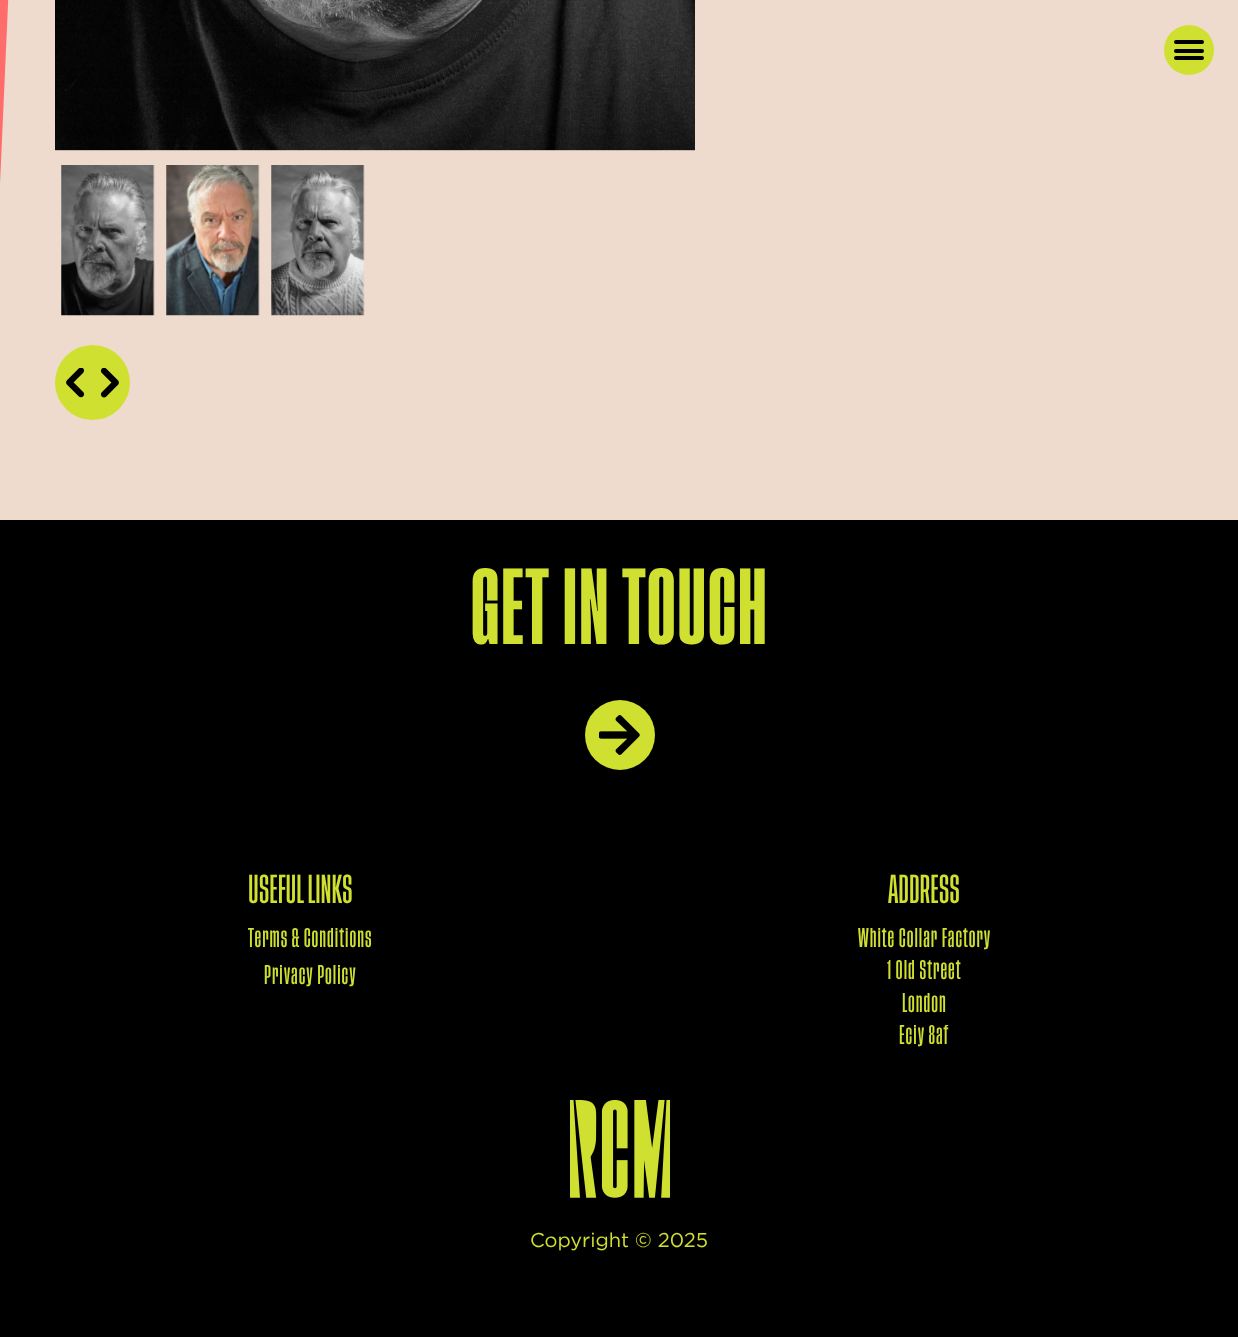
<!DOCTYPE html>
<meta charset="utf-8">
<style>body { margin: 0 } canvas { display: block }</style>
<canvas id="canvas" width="1238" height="1337"></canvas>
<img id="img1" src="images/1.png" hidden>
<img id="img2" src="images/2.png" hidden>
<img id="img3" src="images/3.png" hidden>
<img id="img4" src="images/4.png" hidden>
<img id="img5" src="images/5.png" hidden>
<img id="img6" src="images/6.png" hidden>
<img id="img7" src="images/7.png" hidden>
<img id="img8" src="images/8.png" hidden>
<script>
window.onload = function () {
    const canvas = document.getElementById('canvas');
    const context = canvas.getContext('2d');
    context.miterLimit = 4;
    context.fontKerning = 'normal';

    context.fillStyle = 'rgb(239, 219, 205)';
    context.fillRect(0, 0, 1238, 1337);
    context.fillStyle = 'rgb(207, 224, 49)';
    context.beginPath();
    context.arc(1189, 50, 25, 0, 2 * Math.PI);
    context.fill();
    context.fillStyle = 'rgb(0, 0, 0)';
    context.beginPath();
    context.roundRect(1174, 40, 30, 4, 2);
    context.fill();
    context.beginPath();
    context.roundRect(1174, 49, 30, 4, 2);
    context.fill();
    context.beginPath();
    context.roundRect(1174, 56, 30, 4, 2);
    context.fill();
    context.fillStyle = 'rgb(255, 108, 108)';
    context.beginPath();
    context.moveTo(0, -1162);
    context.lineTo(30, -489);
    context.lineTo(0, 184);
    context.closePath();
    context.fill();
    context.drawImage(document.getElementById('img1'), 55, 0, 640, 151);
    context.drawImage(document.getElementById('img2'), 61, 165, 94, 151);
    context.drawImage(document.getElementById('img3'), 166, 165, 94, 151);
    context.drawImage(document.getElementById('img4'), 271, 165, 94, 151);
    context.fillStyle = 'rgb(207, 224, 49)';
    context.beginPath();
    context.arc(92.5, 382.5, 37.5, 0, 2 * Math.PI);
    context.fill();
    context.drawImage(document.getElementById('img5'), 66, 368, 19, 30);
    context.drawImage(document.getElementById('img6'), 100, 368, 19, 30);
    context.fillStyle = 'rgb(0, 0, 0)';
    context.fillRect(0, 520, 1238, 817);
    context.fillStyle = 'rgb(207, 224, 49)';
    context.beginPath();
    context.arc(620, 735, 35, 0, 2 * Math.PI);
    context.fill();
    context.drawImage(document.getElementById('img7'), 599, 715, 41, 40);
    context.drawImage(document.getElementById('img8'), 570, 1100, 100, 98);
    context.letterSpacing = '2px';
    context.font = 'bold 80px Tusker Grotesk';
    context.fillText('GET IN TOUCH', 471, 644);
    context.letterSpacing = '0px';
    context.font = '500 30px Tusker Grotesk';
    context.fillText('USEFUL LINKS', 248, 903);
    context.letterSpacing = '1px';
    context.font = '500 20px Tusker Grotesk';
    context.fillText('Terms & Conditions', 248, 947);
    context.fillText('Privacy Policy', 264, 984);
    context.letterSpacing = '0px';
    context.font = '500 30px Tusker Grotesk';
    context.fillText('ADDRESS', 888, 903);
    context.letterSpacing = '1px';
    context.font = '500 20px Tusker Grotesk';
    context.fillText('White Collar Factory', 858, 947);
    context.fillText('1 Old Street', 887, 979);
    context.fillText('London', 902, 1012);
    context.fillText('Eciy 8af', 899, 1044);
    context.letterSpacing = '0px';
    context.font = '20px Gotham';
    context.fillText('Copyright © 2025', 530, 1247);
};
</script>
